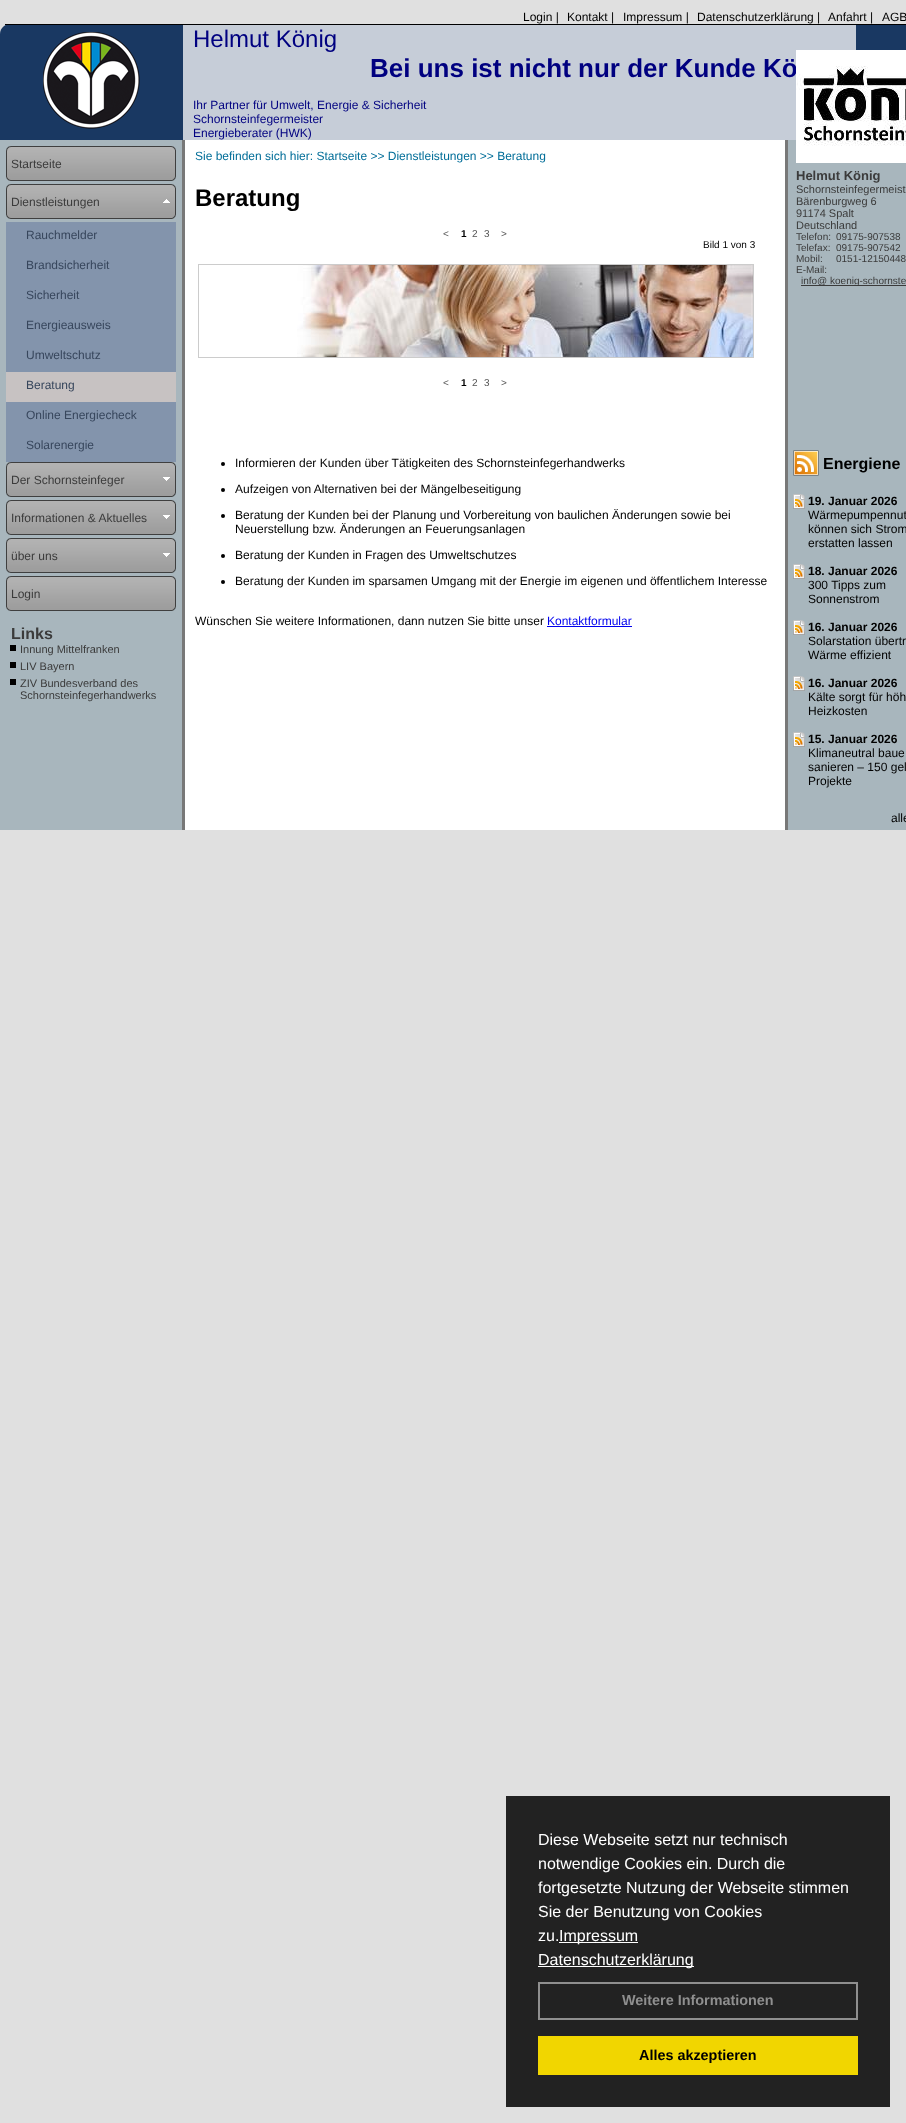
<!DOCTYPE html>
<meta charset="utf-8">
<style>body { margin: 0 } canvas { display: block }</style>
<canvas id="canvas" width="906" height="2123"></canvas>
<img id="img1" src="images/1.png" hidden>
<img id="img2" src="images/2.png" hidden>
<img id="img3" src="images/3.png" hidden>
<img id="img4" src="images/4.png" hidden>
<img id="img5" src="images/5.png" hidden>
<img id="img6" src="images/6.png" hidden>
<img id="img7" src="images/7.png" hidden>
<img id="img8" src="images/8.png" hidden>
<script>
window.onload = function () {
    const canvas = document.getElementById('canvas');
    const context = canvas.getContext('2d');
    context.miterLimit = 4;
    context.fontKerning = 'normal';

    context.fillStyle = 'rgb(224, 224, 224)';
    context.fillRect(0, 0, 906, 2123);
    context.fillStyle = 'rgb(25, 56, 98)';
    context.beginPath();
    context.moveTo(10, 24);
    context.lineTo(906, 24);
    context.bezierCurveTo(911.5, 24, 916, 28.5, 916, 34);
    context.lineTo(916, 140);
    context.lineTo(0, 140);
    context.lineTo(0, 34);
    context.bezierCurveTo(0, 28.5, 4.5, 24, 10, 24);
    context.closePath();
    context.fill();
    context.fillStyle = 'rgb(0, 0, 0)';
    context.fillRect(5, 24, 901, 1);
    context.drawImage(document.getElementById('img1'), 43, 32, 97, 97);
    context.fillStyle = 'rgb(198, 205, 216)';
    context.fillRect(183, 25, 673, 115);
    context.fillStyle = 'rgb(168, 182, 189)';
    context.fillRect(0, 140, 182, 690);
    context.drawImage(document.getElementById('img2'), 6, 146, 170, 35);
    context.drawImage(document.getElementById('img2'), 6, 184, 170, 35);
    context.drawImage(document.getElementById('img3'), 163, 199, 7, 4);
    context.fillStyle = 'rgb(131, 148, 172)';
    context.fillRect(6, 222, 170, 150);
    context.fillStyle = 'rgb(199, 194, 194)';
    context.fillRect(6, 372, 170, 30);
    context.fillStyle = 'rgb(131, 148, 172)';
    context.fillRect(6, 402, 170, 60);
    context.drawImage(document.getElementById('img2'), 6, 462, 170, 35);
    context.drawImage(document.getElementById('img4'), 163, 477, 7, 4);
    context.drawImage(document.getElementById('img2'), 6, 500, 170, 35);
    context.drawImage(document.getElementById('img4'), 163, 515, 7, 4);
    context.drawImage(document.getElementById('img2'), 6, 538, 170, 35);
    context.drawImage(document.getElementById('img4'), 163, 553, 7, 4);
    context.drawImage(document.getElementById('img2'), 6, 576, 170, 35);
    context.fillStyle = 'rgb(1, 0, 0)';
    context.fillRect(10, 645, 6, 6);
    context.fillRect(10, 662, 6, 6);
    context.fillRect(10, 679, 6, 6);
    context.fillStyle = 'rgb(120, 120, 120)';
    context.fillRect(182, 140, 3, 690);
    context.fillStyle = 'rgb(255, 255, 255)';
    context.fillRect(185, 140, 600, 690);
    context.strokeStyle = 'rgb(204, 204, 204)';
    context.strokeRect(198.5, 264.5, 555, 93);
    context.drawImage(document.getElementById('img5'), 297, 265, 456, 92);
    context.fillStyle = 'rgb(0, 0, 0)';
    context.beginPath();
    context.arc(223, 464, 2, 0, 2 * Math.PI);
    context.fill();
    context.beginPath();
    context.arc(223, 490, 2, 0, 2 * Math.PI);
    context.fill();
    context.beginPath();
    context.arc(223, 516, 2, 0, 2 * Math.PI);
    context.fill();
    context.beginPath();
    context.arc(223, 556, 2, 0, 2 * Math.PI);
    context.fill();
    context.beginPath();
    context.arc(223, 582, 2, 0, 2 * Math.PI);
    context.fill();
    context.fillStyle = 'rgb(0, 0, 238)';
    context.fillRect(547, 626, 85, 1);
    context.fillStyle = 'rgb(120, 120, 120)';
    context.fillRect(785, 140, 3, 690);
    context.fillStyle = 'rgb(168, 182, 189)';
    context.fillRect(788, 140, 118, 690);
    context.drawImage(document.getElementById('img6'), 793, 450, 26, 26);
    context.drawImage(document.getElementById('img7'), 793, 494, 12, 15);
    context.drawImage(document.getElementById('img7'), 793, 564, 12, 15);
    context.drawImage(document.getElementById('img7'), 793, 620, 12, 15);
    context.drawImage(document.getElementById('img7'), 793, 676, 12, 15);
    context.drawImage(document.getElementById('img7'), 793, 732, 12, 15);
    context.fillStyle = 'rgb(59, 59, 59)';
    context.fillRect(801, 285, 105, 1);
    context.fillStyle = 'rgb(34, 34, 34)';
    context.fillRect(506, 1796, 384, 311);
    context.fillStyle = 'rgb(255, 255, 255)';
    context.fillRect(559, 1942, 79, 1);
    context.fillRect(538, 1966, 156, 1);
    context.strokeStyle = 'rgb(143, 143, 143)';
    context.lineWidth = 2;
    context.strokeRect(539, 1983, 318, 36);
    context.fillStyle = 'rgb(241, 214, 0)';
    context.fillRect(538, 2036, 320, 39);
    context.font = '12px Liberation Sans';
    context.fillStyle = 'rgb(0, 0, 0)';
    context.fillText('Login |', 523, 21);
    context.fillText('Kontakt |', 567, 21);
    context.fillText('Impressum |', 623, 21);
    context.fillText('Datenschutzerklärung |', 697, 21);
    context.fillText('Anfahrt |', 828, 21);
    context.fillText('AGB', 882, 21);
    context.font = '24px Liberation Sans';
    context.fillStyle = 'rgb(0, 0, 128)';
    context.fillText('Helmut König', 193, 47);
    context.font = 'bold 26px Liberation Sans';
    context.fillText('Bei uns ist nicht nur der Kunde Kö', 370, 77);
    context.font = '12px Liberation Sans';
    context.fillText('Ihr Partner für Umwelt, Energie & Sicherheit', 193, 109);
    context.fillText('Schornsteinfegermeister', 193, 123);
    context.fillText('Energieberater (HWK)', 193, 137);
    context.fillStyle = 'rgb(59, 59, 59)';
    context.fillText('Startseite', 11, 168);
    context.fillText('Dienstleistungen', 11, 206);
    context.fillStyle = 'rgb(55, 70, 92)';
    context.fillText('Rauchmelder', 26, 239);
    context.fillText('Brandsicherheit', 26, 269);
    context.fillText('Sicherheit', 26, 299);
    context.fillText('Energieausweis', 26, 329);
    context.fillText('Umweltschutz', 26, 359);
    context.fillText('Beratung', 26, 389);
    context.fillText('Online Energiecheck', 26, 419);
    context.fillText('Solarenergie', 26, 449);
    context.fillStyle = 'rgb(59, 59, 59)';
    context.fillText('Der Schornsteinfeger', 11, 484);
    context.fillText('Informationen & Aktuelles', 11, 522);
    context.fillText('über uns', 11, 560);
    context.fillText('Login', 11, 598);
    context.font = 'bold 16px Liberation Sans';
    context.fillText('Links', 11, 639);
    context.font = '11px Liberation Sans';
    context.fillText('Innung Mittelfranken', 20, 653);
    context.fillText('LIV Bayern', 20, 670);
    context.fillText('ZIV Bundesverband des', 20, 687);
    context.fillText('Schornsteinfegerhandwerks', 20, 699);
    context.font = '12px Liberation Sans';
    context.fillStyle = 'rgb(0, 109, 152)';
    context.fillText('Sie befinden sich hier: Startseite >> Dienstleistungen >> Beratung', 195, 160);
    context.font = 'bold 24px Liberation Sans';
    context.fillStyle = 'rgb(0, 0, 0)';
    context.fillText('Beratung', 195, 206);
    context.font = '10px Liberation Sans';
    context.fillStyle = 'rgb(84, 84, 84)';
    context.fillText('<', 443, 237);
    context.font = 'bold 10px Liberation Sans';
    context.fillStyle = 'rgb(0, 0, 0)';
    context.fillText('1', 461, 237);
    context.font = '10px Liberation Sans';
    context.fillStyle = 'rgb(84, 84, 84)';
    context.fillText('2', 472, 237);
    context.fillText('3', 484, 237);
    context.fillText('>', 501, 237);
    context.fillStyle = 'rgb(0, 0, 0)';
    context.fillText('Bild 1 von 3', 703, 248);
    context.fillStyle = 'rgb(84, 84, 84)';
    context.fillText('<', 443, 386);
    context.font = 'bold 10px Liberation Sans';
    context.fillStyle = 'rgb(0, 0, 0)';
    context.fillText('1', 461, 386);
    context.font = '10px Liberation Sans';
    context.fillStyle = 'rgb(84, 84, 84)';
    context.fillText('2', 472, 386);
    context.fillText('3', 484, 386);
    context.fillText('>', 501, 386);
    context.font = '12px Liberation Sans';
    context.fillStyle = 'rgb(0, 0, 0)';
    context.fillText('Informieren der Kunden über Tätigkeiten des Schornsteinfegerhandwerks', 235, 467);
    context.fillText('Aufzeigen von Alternativen bei der Mängelbeseitigung', 235, 493);
    context.fillText('Beratung der Kunden bei der Planung und Vorbereitung von baulichen Änderungen sowie bei', 235, 519);
    context.fillText('Neuerstellung bzw. Änderungen an Feuerungsanlagen', 235, 533);
    context.fillText('Beratung der Kunden in Fragen des Umweltschutzes', 235, 559);
    context.fillText('Beratung der Kunden im sparsamen Umgang mit der Energie im eigenen und öffentlichem Interesse', 235, 585);
    context.fillText('Wünschen Sie weitere Informationen, dann nutzen Sie bitte unser', 195, 625);
    context.fillStyle = 'rgb(0, 0, 238)';
    context.fillText('Kontaktformular', 547, 625);
    context.font = 'bold 16px Liberation Sans';
    context.fillStyle = 'rgb(0, 0, 0)';
    context.fillText('Energiene', 823, 469);
    context.font = 'bold 12px Liberation Sans';
    context.fillText('19. Januar 2026', 808, 505);
    context.font = '12px Liberation Sans';
    context.fillText('Wärmepumpennut', 808, 519);
    context.fillText('können sich Strom', 808, 533);
    context.fillText('erstatten lassen', 808, 547);
    context.font = 'bold 12px Liberation Sans';
    context.fillText('18. Januar 2026', 808, 575);
    context.font = '12px Liberation Sans';
    context.fillText('300 Tipps zum', 808, 589);
    context.fillText('Sonnenstrom', 808, 603);
    context.font = 'bold 12px Liberation Sans';
    context.fillText('16. Januar 2026', 808, 631);
    context.font = '12px Liberation Sans';
    context.fillText('Solarstation übertr', 808, 645);
    context.fillText('Wärme effizient', 808, 659);
    context.font = 'bold 12px Liberation Sans';
    context.fillText('16. Januar 2026', 808, 687);
    context.font = '12px Liberation Sans';
    context.fillText('Kälte sorgt für höh', 808, 701);
    context.fillText('Heizkosten', 808, 715);
    context.font = 'bold 12px Liberation Sans';
    context.fillText('15. Januar 2026', 808, 743);
    context.font = '12px Liberation Sans';
    context.fillText('Klimaneutral baue', 808, 757);
    context.fillText('sanieren – 150 gel', 808, 771);
    context.fillText('Projekte', 808, 785);
    context.fillText('alle', 891, 822);
    context.drawImage(document.getElementById('img8'), 796, 50, 110, 113);
    context.font = 'bold 13px Liberation Sans';
    context.fillStyle = 'rgb(59, 59, 59)';
    context.fillText('Helmut König', 796, 180);
    context.font = '11px Liberation Sans';
    context.fillText('Schornsteinfegermeist', 796, 193);
    context.fillText('Bärenburgweg 6', 796, 205);
    context.fillText('91174 Spalt', 796, 217);
    context.fillText('Deutschland', 796, 229);
    context.font = '10px Liberation Sans';
    context.fillText('Telefon:', 796, 240);
    context.fillText('09175-907538', 836, 240);
    context.fillText('Telefax:', 796, 251);
    context.fillText('09175-907542', 836, 251);
    context.fillText('Mobil:', 796, 262);
    context.fillText('0151-12150448', 836, 262);
    context.fillText('E-Mail:', 796, 273);
    context.fillText('info@ koenig-schornste', 801, 284);
    context.font = '16px Liberation Sans';
    context.fillStyle = 'rgb(255, 255, 255)';
    context.fillText('Diese Webseite setzt nur technisch', 538, 1845);
    context.fillText('notwendige Cookies ein. Durch die', 538, 1869);
    context.fillText('fortgesetzte Nutzung der Webseite stimmen', 538, 1893);
    context.fillText('Sie der Benutzung von Cookies', 538, 1917);
    context.fillText('zu.', 538, 1941);
    context.fillText('Impressum', 559, 1941);
    context.fillText('Datenschutzerklärung', 538, 1965);
    context.font = 'bold 14.4px Liberation Sans';
    context.fillStyle = 'rgb(143, 143, 143)';
    context.fillText('Weitere Informationen', 622, 2005);
    context.fillStyle = 'rgb(0, 0, 0)';
    context.fillText('Alles akzeptieren', 639, 2060);
};
</script>
